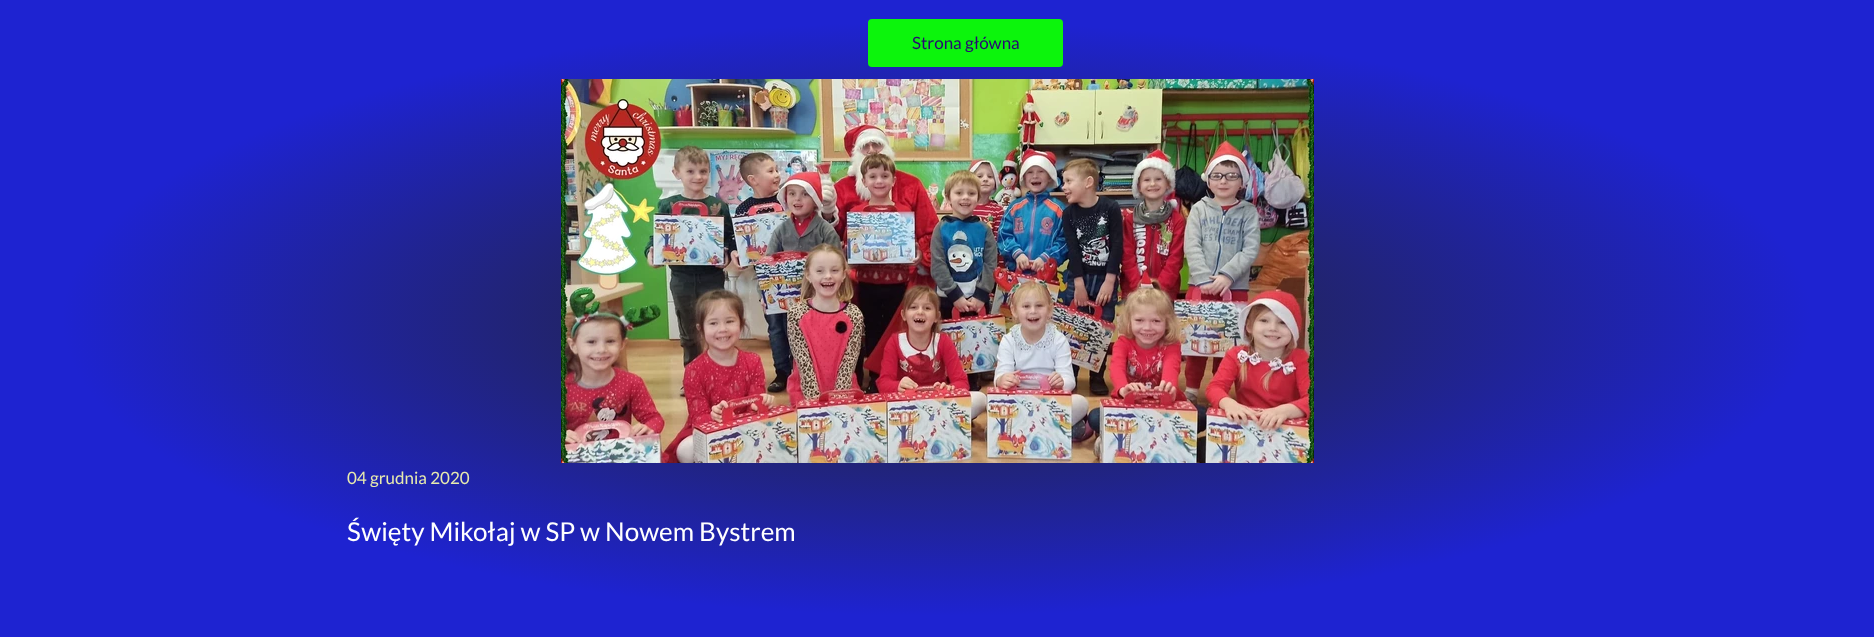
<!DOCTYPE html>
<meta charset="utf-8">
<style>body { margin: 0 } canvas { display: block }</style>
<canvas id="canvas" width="1874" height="637"></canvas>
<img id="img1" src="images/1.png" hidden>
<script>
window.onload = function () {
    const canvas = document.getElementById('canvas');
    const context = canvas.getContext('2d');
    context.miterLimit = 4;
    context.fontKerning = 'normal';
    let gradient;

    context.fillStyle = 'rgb(255, 255, 255)';
    context.fillRect(0, 0, 1874, 637);
    gradient = context.createRadialGradient(937, 939.28, 0, 937, 939.28, 1325);
    gradient.addColorStop(0.13, 'rgb(35, 36, 69)');
    gradient.addColorStop(0.66, 'rgb(30, 35, 209)');
    context.fillStyle = gradient;
    context.beginPath();
    context.rect(0, 0, 1874, 637);
    context.save();
    context.clip();
    context.scale(1, 450 / 1325);
    context.fillRect(0, 0, 1874, 1876);
    context.restore();
    context.fillStyle = 'rgb(12, 245, 12)';
    context.beginPath();
    context.roundRect(868, 19, 195, 48, 4);
    context.fill();
    context.drawImage(document.getElementById('img1'), 561, 79, 753, 384);
    context.font = '17px Lato';
    context.fillStyle = 'rgb(41, 9, 115)';
    context.fillText('Strona główna', 912, 49);
    context.fillStyle = 'rgb(232, 235, 174)';
    context.fillText('04 grudnia 2020', 347, 484);
    context.font = '26px Lato';
    context.fillStyle = 'rgb(255, 255, 255)';
    context.fillText('Święty Mikołaj w SP w Nowem Bystrem', 347, 541);
};
</script>
